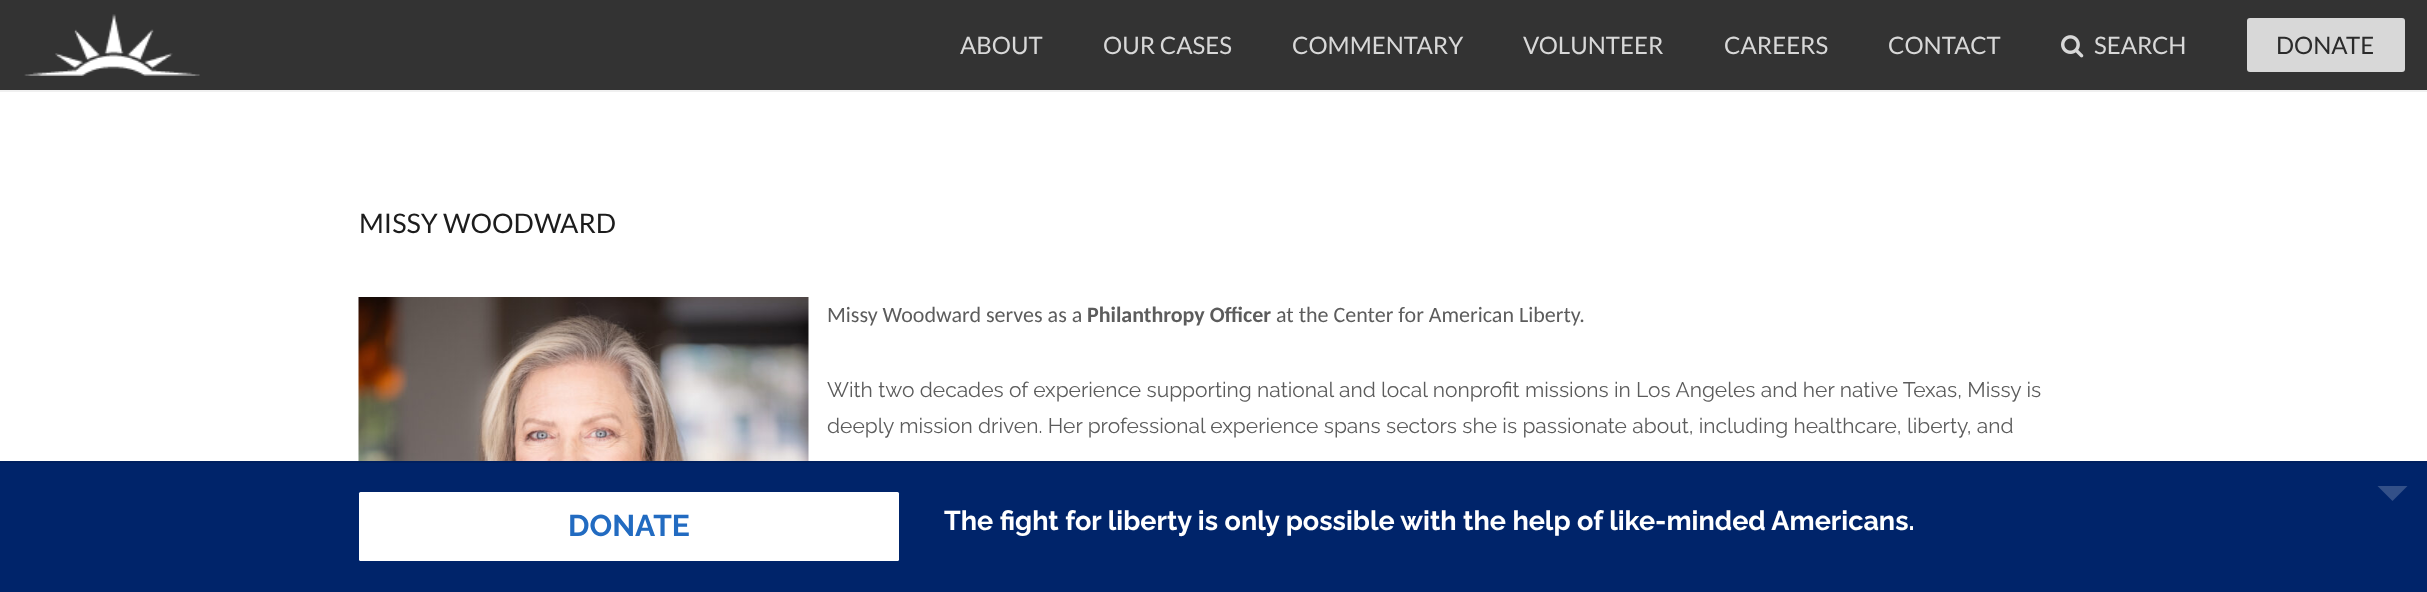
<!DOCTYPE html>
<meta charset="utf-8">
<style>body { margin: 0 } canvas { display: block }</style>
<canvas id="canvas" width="2427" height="592"></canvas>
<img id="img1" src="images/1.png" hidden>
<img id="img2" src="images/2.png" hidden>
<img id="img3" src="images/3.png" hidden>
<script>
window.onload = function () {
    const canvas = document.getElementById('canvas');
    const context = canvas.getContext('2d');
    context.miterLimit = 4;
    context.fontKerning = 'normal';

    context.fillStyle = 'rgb(255, 255, 255)';
    context.fillRect(0, 0, 2427, 592);
    context.fillStyle = 'rgb(240, 240, 240)';
    context.fillRect(0, 90, 2427, 2);
    context.fillStyle = 'rgb(51, 51, 51)';
    context.fillRect(0, 0, 2427, 90);
    context.drawImage(document.getElementById('img1'), 24, 14, 176, 62);
    context.drawImage(document.getElementById('img2'), 2061, 35, 23, 23);
    context.fillStyle = 'rgb(216, 216, 216)';
    context.beginPath();
    context.roundRect(2247, 18, 158, 54, 3);
    context.fill();
    context.drawImage(document.getElementById('img3'), 358, 297, 451, 164);
    context.fillStyle = 'rgb(0, 36, 106)';
    context.fillRect(0, 463, 2427, 129);
    context.fillStyle = 'rgb(0, 32, 95)';
    context.fillRect(0, 461, 2427, 2);
    context.fillStyle = 'rgb(51, 80, 136)';
    context.beginPath();
    context.moveTo(2377.5, 486);
    context.lineTo(2407.5, 486);
    context.lineTo(2392.5, 501);
    context.closePath();
    context.fill();
    context.fillStyle = 'rgb(255, 255, 255)';
    context.beginPath();
    context.roundRect(359, 492, 540, 69, 1.5);
    context.fill();
    context.font = '24px Lato';
    context.fillStyle = 'rgb(216, 216, 216)';
    context.fillText('ABOUT', 960, 54);
    context.fillText('OUR CASES', 1103, 54);
    context.fillText('COMMENTARY', 1292, 54);
    context.fillText('VOLUNTEER', 1523, 54);
    context.fillText('CAREERS', 1724, 54);
    context.fillText('CONTACT', 1888, 54);
    context.fillText('SEARCH', 2094, 54);
    context.fillStyle = 'rgb(43, 43, 43)';
    context.fillText('DONATE', 2276, 54);
    context.font = '27px Lato';
    context.fillStyle = 'rgb(28, 28, 28)';
    context.fillText('MISSY WOODWARD', 359, 233);
    context.font = '22px Carlito';
    context.fillStyle = 'rgb(92, 92, 92)';
    context.fillText('Missy Woodward serves as a', 827, 322);
    context.font = 'bold 22px Carlito';
    context.fillText('Philanthropy Officer', 1087, 322);
    context.font = '22px Carlito';
    context.fillText('at the Center for American Liberty.', 1276, 322);
    context.font = '21px Raleway';
    context.fillText('With two decades of experience supporting national and local nonprofit missions in Los Angeles and her native Texas, Missy is', 827, 397);
    context.fillText('deeply mission driven. Her professional experience spans sectors she is passionate about, including healthcare, liberty, and', 827, 433);
    context.font = 'bold 30px Raleway';
    context.fillStyle = 'rgb(34, 107, 193)';
    context.fillText('DONATE', 568, 536);
    context.font = 'bold 27px Raleway';
    context.fillStyle = 'rgb(255, 255, 255)';
    context.fillText('The fight for liberty is only possible with the help of like-minded Americans.', 944, 530);
};
</script>
